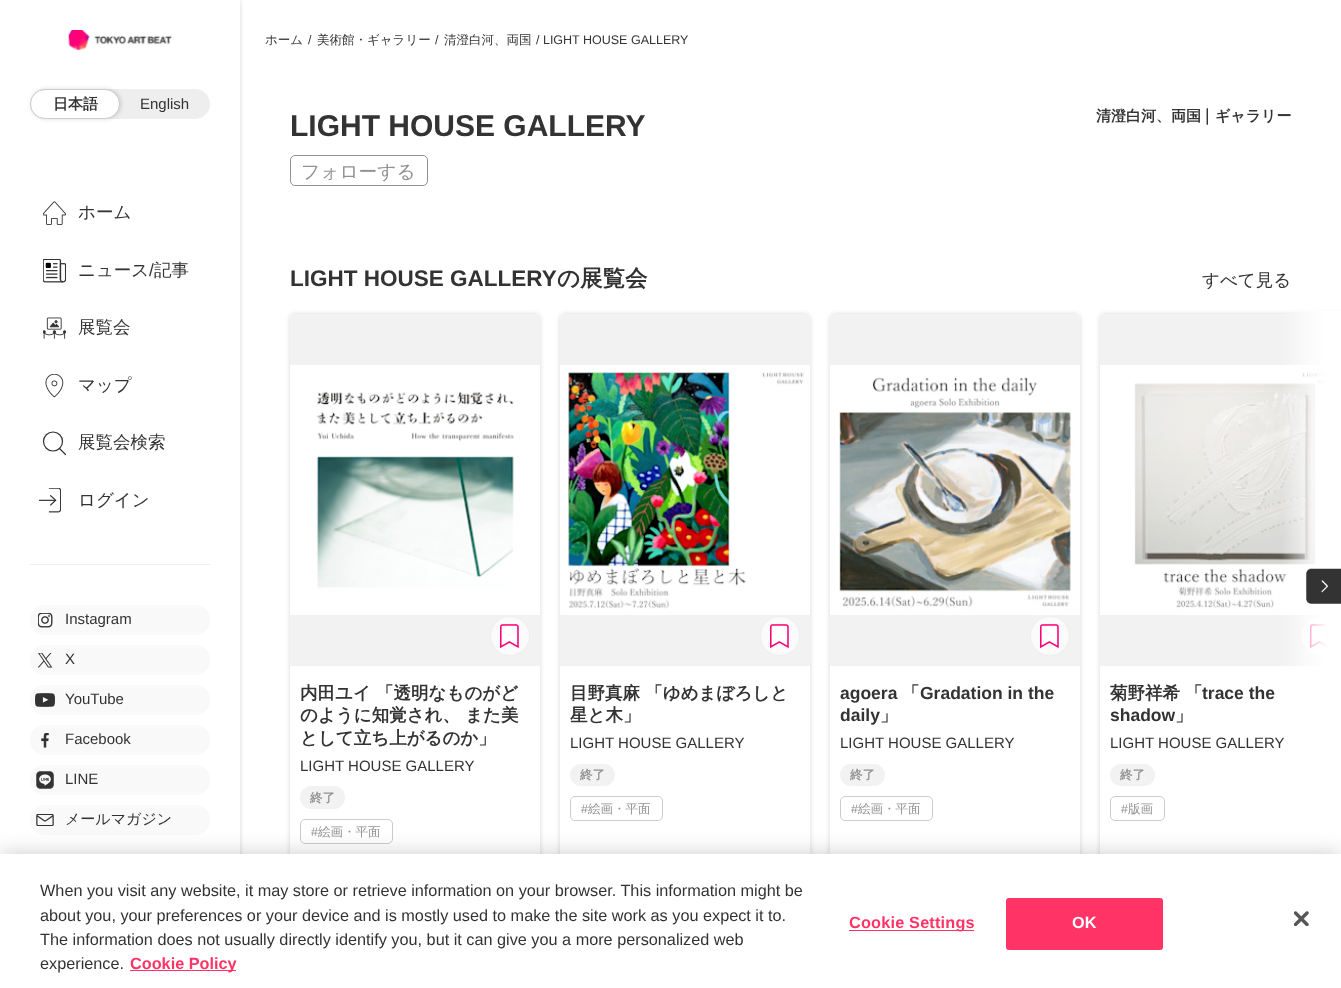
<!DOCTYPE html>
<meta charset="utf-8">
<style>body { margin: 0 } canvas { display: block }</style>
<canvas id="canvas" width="1341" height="988"></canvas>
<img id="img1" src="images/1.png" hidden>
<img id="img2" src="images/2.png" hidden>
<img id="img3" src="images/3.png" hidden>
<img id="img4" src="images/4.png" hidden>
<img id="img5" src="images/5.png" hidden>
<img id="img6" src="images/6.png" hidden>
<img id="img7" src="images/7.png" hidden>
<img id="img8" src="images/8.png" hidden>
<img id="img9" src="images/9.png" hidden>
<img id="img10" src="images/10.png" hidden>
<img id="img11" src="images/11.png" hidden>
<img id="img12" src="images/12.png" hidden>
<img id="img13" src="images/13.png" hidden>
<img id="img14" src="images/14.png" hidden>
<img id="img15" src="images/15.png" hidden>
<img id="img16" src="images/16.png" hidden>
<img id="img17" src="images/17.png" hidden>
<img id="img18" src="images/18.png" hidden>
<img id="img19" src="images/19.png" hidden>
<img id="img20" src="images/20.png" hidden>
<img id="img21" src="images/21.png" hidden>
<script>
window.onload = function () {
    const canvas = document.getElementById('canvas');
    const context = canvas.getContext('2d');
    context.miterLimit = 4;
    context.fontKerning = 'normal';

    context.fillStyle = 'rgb(255, 255, 255)';
    context.fillRect(0, 0, 1341, 988);
    context.save();
    context.beginPath();
    context.rect(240, 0, 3, 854);
    context.clip();
    context.fillStyle = 'rgba(0, 0, 0, 0.15)';
    context.filter = 'blur(3px)';
    context.beginPath();
    context.rect(0, 0, 240, 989);
    context.fill();
    context.filter = 'none';
    context.restore();
    context.drawImage(document.getElementById('img1'), 68, 30, 104, 20);
    context.fillStyle = 'rgb(238, 238, 238)';
    context.beginPath();
    context.roundRect(30, 89, 180, 30, 15);
    context.fill();
    context.fillStyle = 'rgba(0, 0, 0, 0.15)';
    context.filter = 'blur(2px)';
    context.beginPath();
    context.roundRect(31, 89, 90, 30, 15);
    context.fill();
    context.filter = 'none';
    context.fillStyle = 'rgb(255, 255, 255)';
    context.beginPath();
    context.roundRect(30.5, 89.5, 89, 29, 14.5);
    context.fill();
    context.strokeStyle = 'rgb(204, 204, 204)';
    context.stroke();
    context.drawImage(document.getElementById('img2'), 43, 201, 23, 24);
    context.drawImage(document.getElementById('img3'), 43, 259, 23, 24);
    context.drawImage(document.getElementById('img4'), 43, 317, 23, 22);
    context.drawImage(document.getElementById('img5'), 45, 374, 19, 24);
    context.beginPath();
    context.arc(53, 441.5, 9.5, 0, 2 * Math.PI);
    context.strokeStyle = 'rgb(51, 51, 51)';
    context.lineWidth = 1.2;
    context.stroke();
    context.beginPath();
    context.moveTo(65.5, 454.5);
    context.lineTo(59.5, 448.5);
    context.lineCap = 'round';
    context.lineJoin = 'round';
    context.stroke();
    context.drawImage(document.getElementById('img6'), 39, 488, 22, 25);
    context.fillStyle = 'rgb(238, 238, 238)';
    context.fillRect(30, 564, 180, 1);
    context.fillStyle = 'rgb(249, 249, 249)';
    context.beginPath();
    context.roundRect(30, 605, 180, 30, 15);
    context.fill();
    context.drawImage(document.getElementById('img7'), 38, 613, 15, 15);
    context.beginPath();
    context.roundRect(30, 645, 180, 30, 15);
    context.fill();
    context.drawImage(document.getElementById('img8'), 38, 653, 15, 15);
    context.beginPath();
    context.roundRect(30, 685, 180, 30, 15);
    context.fill();
    context.drawImage(document.getElementById('img9'), 35, 693, 20, 14);
    context.beginPath();
    context.roundRect(30, 725, 180, 30, 15);
    context.fill();
    context.drawImage(document.getElementById('img10'), 41, 733, 8, 15);
    context.beginPath();
    context.roundRect(30, 765, 180, 30, 15);
    context.fill();
    context.drawImage(document.getElementById('img11'), 36, 771, 18, 18);
    context.beginPath();
    context.roundRect(30, 805, 180, 30, 15);
    context.fill();
    context.drawImage(document.getElementById('img12'), 36, 814, 18, 12);
    context.beginPath();
    context.roundRect(290.5, 155.5, 137, 30, 4.5);
    context.strokeStyle = 'rgb(146, 146, 146)';
    context.lineWidth = 1;
    context.lineJoin = 'miter';
    context.stroke();
    context.fillStyle = 'rgba(0, 0, 0, 0.15)';
    context.filter = 'blur(2.5px)';
    context.beginPath();
    context.roundRect(290, 314, 250, 545, 5);
    context.fill();
    context.filter = 'none';
    context.fillStyle = 'rgb(255, 255, 255)';
    context.beginPath();
    context.roundRect(290, 314, 250, 545, 5);
    context.fill();
    context.fillStyle = 'rgb(242, 242, 242)';
    context.beginPath();
    context.roundRect(290, 314, 250, 352, [5, 5, 0, 0]);
    context.fill();
    context.fillStyle = 'rgb(251, 251, 251)';
    context.beginPath();
    context.arc(510, 636, 19.5, 0, 2 * Math.PI);
    context.fill();
    context.strokeStyle = 'rgb(238, 238, 238)';
    context.stroke();
    context.drawImage(document.getElementById('img13'), 500, 624, 19, 25);
    context.drawImage(document.getElementById('img14'), 290, 365, 250, 250);
    context.fillStyle = 'rgb(242, 242, 242)';
    context.beginPath();
    context.roundRect(300, 786, 45, 23, 11.5);
    context.fill();
    context.beginPath();
    context.roundRect(300.5, 819.5, 92, 24, 4.5);
    context.strokeStyle = 'rgb(204, 204, 204)';
    context.stroke();
    context.fillStyle = 'rgba(0, 0, 0, 0.15)';
    context.filter = 'blur(2.5px)';
    context.beginPath();
    context.roundRect(560, 314, 250, 545, 5);
    context.fill();
    context.filter = 'none';
    context.fillStyle = 'rgb(255, 255, 255)';
    context.beginPath();
    context.roundRect(560, 314, 250, 545, 5);
    context.fill();
    context.fillStyle = 'rgb(242, 242, 242)';
    context.beginPath();
    context.roundRect(560, 314, 250, 352, [5, 5, 0, 0]);
    context.fill();
    context.fillStyle = 'rgb(251, 251, 251)';
    context.beginPath();
    context.arc(780, 636, 19.5, 0, 2 * Math.PI);
    context.fill();
    context.strokeStyle = 'rgb(238, 238, 238)';
    context.stroke();
    context.drawImage(document.getElementById('img13'), 770, 624, 19, 25);
    context.drawImage(document.getElementById('img15'), 560, 365, 250, 250);
    context.fillStyle = 'rgb(242, 242, 242)';
    context.beginPath();
    context.roundRect(570, 764, 45, 22, 11);
    context.fill();
    context.beginPath();
    context.roundRect(570.5, 796.5, 92, 24, 4.5);
    context.strokeStyle = 'rgb(204, 204, 204)';
    context.stroke();
    context.fillStyle = 'rgba(0, 0, 0, 0.15)';
    context.filter = 'blur(2.5px)';
    context.beginPath();
    context.roundRect(830, 314, 250, 545, 5);
    context.fill();
    context.filter = 'none';
    context.fillStyle = 'rgb(255, 255, 255)';
    context.beginPath();
    context.roundRect(830, 314, 250, 545, 5);
    context.fill();
    context.fillStyle = 'rgb(242, 242, 242)';
    context.beginPath();
    context.roundRect(830, 314, 250, 352, [5, 5, 0, 0]);
    context.fill();
    context.fillStyle = 'rgb(251, 251, 251)';
    context.beginPath();
    context.arc(1050, 636, 19.5, 0, 2 * Math.PI);
    context.fill();
    context.strokeStyle = 'rgb(238, 238, 238)';
    context.stroke();
    context.drawImage(document.getElementById('img13'), 1040, 624, 19, 25);
    context.drawImage(document.getElementById('img16'), 830, 365, 250, 250);
    context.fillStyle = 'rgb(242, 242, 242)';
    context.beginPath();
    context.roundRect(840, 764, 45, 22, 11);
    context.fill();
    context.beginPath();
    context.roundRect(840.5, 796.5, 92, 24, 4.5);
    context.strokeStyle = 'rgb(204, 204, 204)';
    context.stroke();
    context.fillStyle = 'rgba(0, 0, 0, 0.15)';
    context.filter = 'blur(2.5px)';
    context.beginPath();
    context.roundRect(1100, 314, 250, 545, 5);
    context.fill();
    context.filter = 'none';
    context.fillStyle = 'rgb(255, 255, 255)';
    context.beginPath();
    context.roundRect(1100, 314, 241, 545, [5, 0, 0, 5]);
    context.fill();
    context.fillStyle = 'rgb(242, 242, 242)';
    context.beginPath();
    context.roundRect(1100, 314, 241, 352, [5, 0, 0, 0]);
    context.fill();
    context.fillStyle = 'rgb(251, 251, 251)';
    context.beginPath();
    context.arc(1320, 636, 19.5, 0, 2 * Math.PI);
    context.fill();
    context.strokeStyle = 'rgb(238, 238, 238)';
    context.stroke();
    context.drawImage(document.getElementById('img17'), 1310, 624, 18, 25);
    context.drawImage(document.getElementById('img18'), 1100, 365, 228, 250);
    context.fillStyle = 'rgb(242, 242, 242)';
    context.beginPath();
    context.roundRect(1110, 764, 45, 22, 11);
    context.fill();
    context.beginPath();
    context.roundRect(1110.5, 796.5, 54, 24, 4.5);
    context.strokeStyle = 'rgb(204, 204, 204)';
    context.stroke();
    context.font = 'bold 15px WenQuanYi Zen Hei';
    context.fillStyle = 'rgb(51, 51, 51)';
    context.fillText('日本語', 53, 109);
    context.font = '15px Liberation Sans';
    context.fillText('English', 140, 109);
    context.font = '500 17.5px WenQuanYi Zen Hei';
    context.fillText('ホーム', 78, 218);
    context.fillText('ニュース', 78, 276);
    context.font = '17.5px Liberation Sans';
    context.fillText('/', 149, 276);
    context.font = '500 17.5px WenQuanYi Zen Hei';
    context.fillText('記事', 154, 276);
    context.fillText('展覧会', 78, 333);
    context.fillText('マップ', 78, 391);
    context.fillText('展覧会検索', 78, 448);
    context.fillText('ログイン', 78, 506);
    context.font = '15px Liberation Sans';
    context.fillText('Instagram', 65, 624);
    context.fillText('X', 65, 664);
    context.fillText('YouTube', 65, 704);
    context.fillText('Facebook', 65, 744);
    context.fillText('LINE', 65, 784);
    context.font = '500 15px WenQuanYi Zen Hei';
    context.fillText('メールマガジン', 65, 824);
    context.font = '500 12.5px WenQuanYi Zen Hei';
    context.fillText('ホーム', 265, 44);
    context.font = '12.5px Liberation Sans';
    context.fillText('/', 308, 44);
    context.font = '500 12.5px WenQuanYi Zen Hei';
    context.fillText('美術館・ギャラリー', 317, 44);
    context.font = '12.5px Liberation Sans';
    context.fillText('/', 435, 44);
    context.font = '500 12.5px WenQuanYi Zen Hei';
    context.fillText('清澄白河、両国', 444, 44);
    context.font = '12.5px Liberation Sans';
    context.fillText('/ LIGHT HOUSE GALLERY', 536, 44);
    context.font = 'bold 30px Liberation Sans';
    context.fillText('LIGHT HOUSE GALLERY', 290, 136);
    context.font = 'bold 15px WenQuanYi Zen Hei';
    context.fillText('清澄白河、両国', 1096, 121);
    context.font = '17.5px Liberation Sans';
    context.fillText('|', 1205, 121);
    context.font = 'bold 15px WenQuanYi Zen Hei';
    context.fillText('ギャラリー', 1215, 121);
    context.font = '500 18.75px WenQuanYi Zen Hei';
    context.fillStyle = 'rgb(146, 146, 146)';
    context.fillText('フォローする', 301, 178);
    context.font = 'bold 22.5px Liberation Sans';
    context.fillStyle = 'rgb(51, 51, 51)';
    context.fillText('LIGHT HOUSE GALLERY', 290, 286);
    context.font = 'bold 22.5px WenQuanYi Zen Hei';
    context.fillText('の展覧会', 557, 286);
    context.font = '500 17.5px WenQuanYi Zen Hei';
    context.fillText('すべて見る', 1202, 286);
    context.font = 'bold 17.5px WenQuanYi Zen Hei';
    context.fillText('内田ユイ 「透明なものがど', 300, 699);
    context.fillText('のように知覚され、 また美', 300, 721);
    context.fillText('として立ち上がるのか」', 300, 744);
    context.font = '15px Liberation Sans';
    context.fillText('LIGHT HOUSE GALLERY', 300, 771);
    context.font = 'bold 12.5px WenQuanYi Zen Hei';
    context.fillStyle = 'rgb(146, 146, 146)';
    context.fillText('終了', 310, 802);
    context.font = '12.5px Liberation Sans';
    context.fillText('#', 311, 836);
    context.font = '500 12.5px WenQuanYi Zen Hei';
    context.fillText('絵画・平面', 318, 836);
    context.font = 'bold 17.5px WenQuanYi Zen Hei';
    context.fillStyle = 'rgb(51, 51, 51)';
    context.fillText('目野真麻 「ゆめまぼろしと', 570, 699);
    context.fillText('星と木」', 570, 721);
    context.font = '15px Liberation Sans';
    context.fillText('LIGHT HOUSE GALLERY', 570, 748);
    context.font = 'bold 12.5px WenQuanYi Zen Hei';
    context.fillStyle = 'rgb(146, 146, 146)';
    context.fillText('終了', 580, 779);
    context.font = '12.5px Liberation Sans';
    context.fillText('#', 581, 813);
    context.font = '500 12.5px WenQuanYi Zen Hei';
    context.fillText('絵画・平面', 588, 813);
    context.font = 'bold 17.5px Liberation Sans';
    context.fillStyle = 'rgb(51, 51, 51)';
    context.fillText('agoera', 840, 699);
    context.font = 'bold 17.5px WenQuanYi Zen Hei';
    context.fillText('「', 902, 699);
    context.font = 'bold 17.5px Liberation Sans';
    context.fillText('Gradation in the', 920, 699);
    context.fillText('daily', 840, 721);
    context.font = 'bold 17.5px WenQuanYi Zen Hei';
    context.fillText('」', 880, 721);
    context.font = '15px Liberation Sans';
    context.fillText('LIGHT HOUSE GALLERY', 840, 748);
    context.font = 'bold 12.5px WenQuanYi Zen Hei';
    context.fillStyle = 'rgb(146, 146, 146)';
    context.fillText('終了', 850, 779);
    context.font = '12.5px Liberation Sans';
    context.fillText('#', 851, 813);
    context.font = '500 12.5px WenQuanYi Zen Hei';
    context.fillText('絵画・平面', 858, 813);
    context.font = 'bold 17.5px WenQuanYi Zen Hei';
    context.fillStyle = 'rgb(51, 51, 51)';
    context.fillText('菊野祥希', 1110, 699);
    context.fillText('「', 1185, 699);
    context.font = 'bold 17.5px Liberation Sans';
    context.fillText('trace the', 1202, 699);
    context.fillText('shadow', 1110, 721);
    context.font = 'bold 17.5px WenQuanYi Zen Hei';
    context.fillText('」', 1175, 721);
    context.font = '15px Liberation Sans';
    context.fillText('LIGHT HOUSE GALLERY', 1110, 748);
    context.font = 'bold 12.5px WenQuanYi Zen Hei';
    context.fillStyle = 'rgb(146, 146, 146)';
    context.fillText('終了', 1120, 779);
    context.font = '12.5px Liberation Sans';
    context.fillText('#', 1121, 813);
    context.font = '500 12.5px WenQuanYi Zen Hei';
    context.fillText('版画', 1128, 813);
    context.drawImage(document.getElementById('img19'), 1282, 311, 59, 543);
    context.drawImage(document.getElementById('img20'), 1306, 568, 35, 36);
    context.fillStyle = 'rgba(0, 0, 0, 0.2)';
    context.filter = 'blur(11px)';
    context.beginPath();
    context.rect(0, 854, 1341, 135);
    context.fill();
    context.filter = 'none';
    context.fillStyle = 'rgb(255, 255, 255)';
    context.fillRect(0, 854, 1341, 134);
    context.font = '16.25px Liberation Sans';
    context.fillStyle = 'rgb(51, 51, 51)';
    context.fillText('When you visit any website, it may store or retrieve information on your browser. This information might be', 40, 896);
    context.fillText('about you, your preferences or your device and is mostly used to make the site work as you expect it to.', 40, 921);
    context.fillText('The information does not usually directly identify you, but it can give you a more personalized web', 40, 945);
    context.fillText('experience.', 40, 969);
    context.fillStyle = 'rgb(255, 51, 102)';
    context.fillRect(130, 970, 106, 1);
    context.font = 'bold 16.25px Liberation Sans';
    context.fillText('Cookie Policy', 130, 969);
    context.fillRect(849, 930, 125, 1);
    context.letterSpacing = '0.2px';
    context.fillText('Cookie Settings', 849, 928);
    context.beginPath();
    context.roundRect(1006.5, 898.5, 156, 51, 2);
    context.fill();
    context.strokeStyle = 'rgb(255, 51, 102)';
    context.stroke();
    context.fillStyle = 'rgb(255, 255, 255)';
    context.fillText('OK', 1072, 928);
    context.drawImage(document.getElementById('img21'), 1294, 911, 15, 15);
};
</script>
